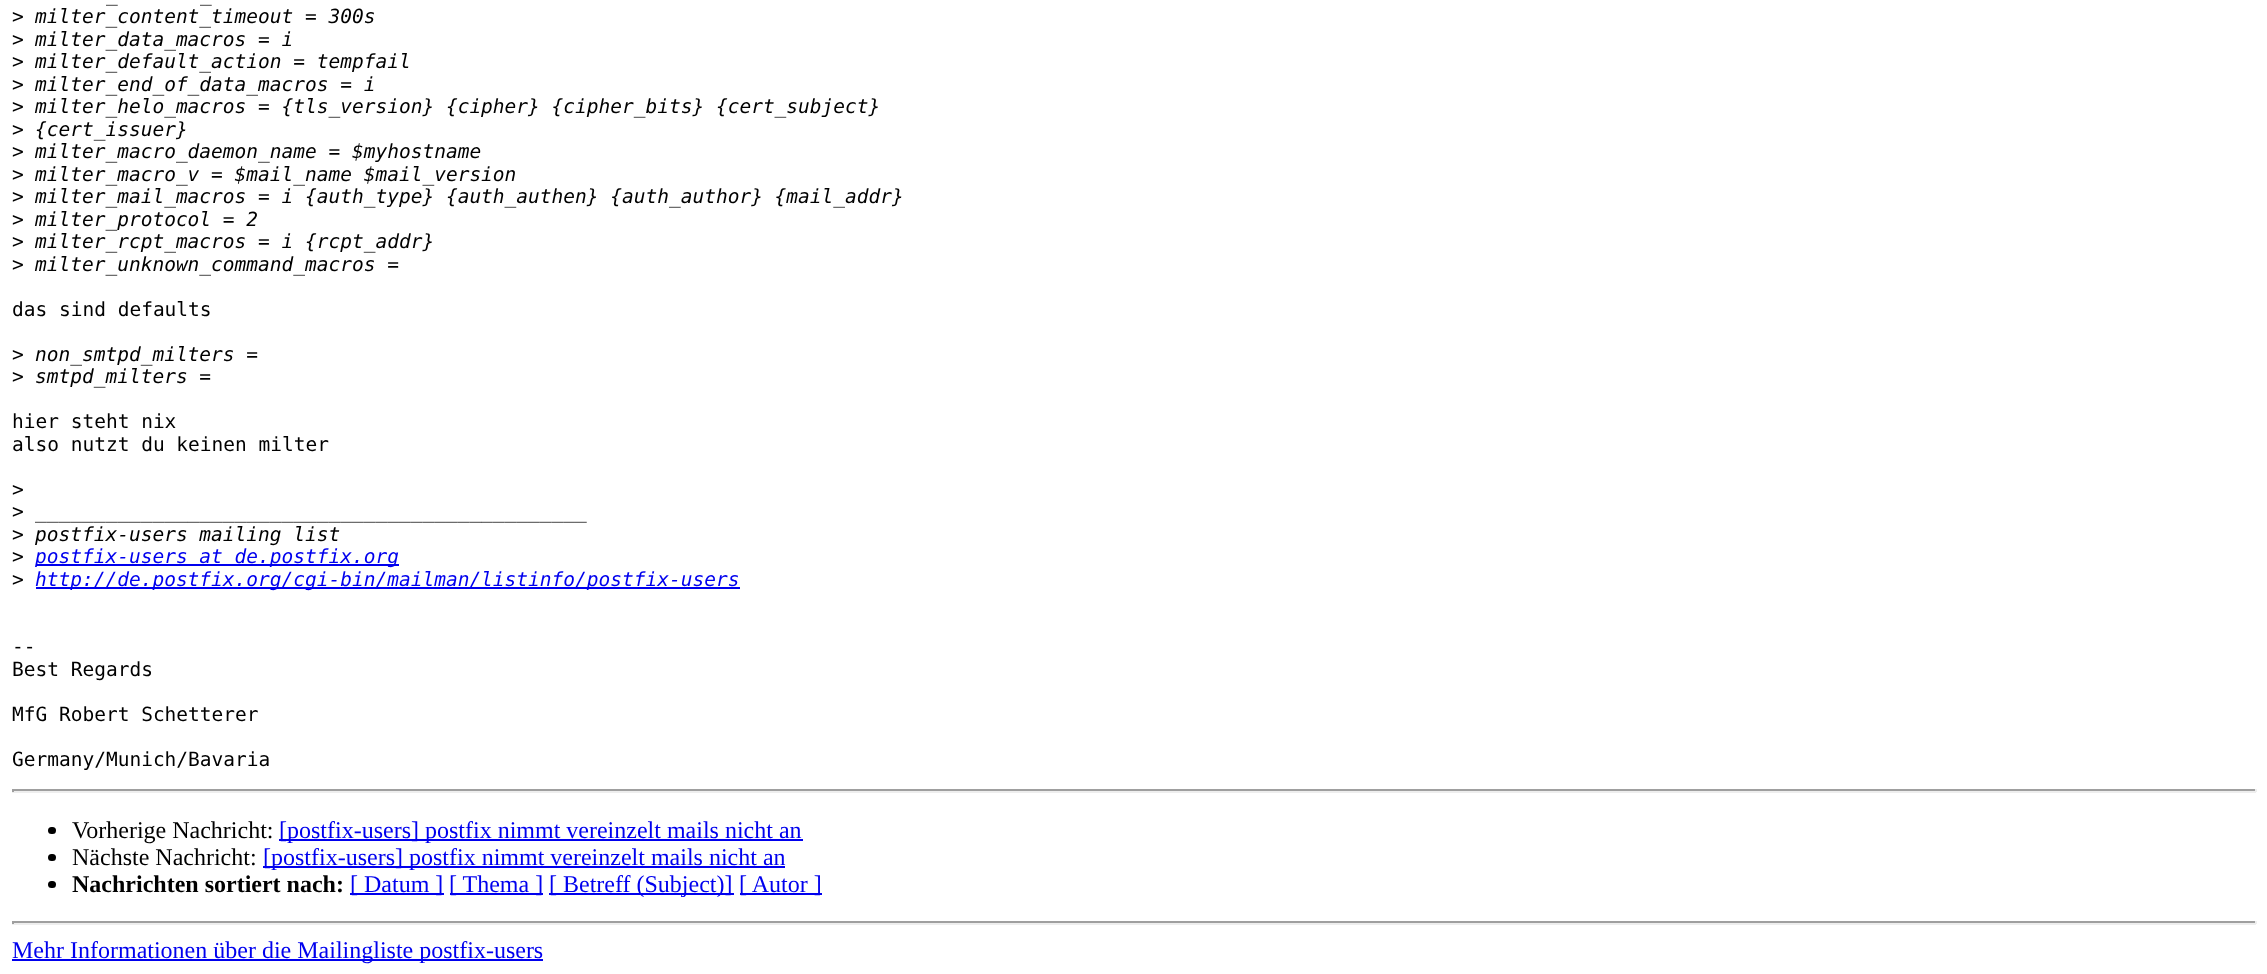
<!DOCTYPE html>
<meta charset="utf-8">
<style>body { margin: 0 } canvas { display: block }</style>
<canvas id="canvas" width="2267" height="974"></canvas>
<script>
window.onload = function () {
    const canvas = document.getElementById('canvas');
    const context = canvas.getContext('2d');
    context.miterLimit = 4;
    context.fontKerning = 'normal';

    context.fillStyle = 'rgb(255, 255, 255)';
    context.fillRect(0, 0, 2267, 974);
    context.fillStyle = 'rgb(0, 0, 238)';
    context.fillRect(36, 564, 363, 2);
    context.fillRect(36, 587, 704, 2);
    context.fillStyle = 'rgb(159, 159, 159)';
    context.fillRect(12, 789, 2244, 2);
    context.fillStyle = 'rgb(238, 238, 238)';
    context.fillRect(2255, 789, 2, 3);
    context.fillRect(12, 791, 2244, 2);
    context.fillStyle = 'rgb(159, 159, 159)';
    context.fillRect(12, 789, 2, 3);
    context.fillStyle = 'rgb(0, 0, 0)';
    context.beginPath();
    context.roundRect(48, 827, 8, 7, 3.5);
    context.fill();
    context.fillStyle = 'rgb(0, 0, 238)';
    context.fillRect(279, 839, 524, 2);
    context.fillStyle = 'rgb(0, 0, 0)';
    context.beginPath();
    context.roundRect(48, 854, 8, 7, 3.5);
    context.fill();
    context.fillStyle = 'rgb(0, 0, 238)';
    context.fillRect(263, 866, 522, 2);
    context.fillStyle = 'rgb(0, 0, 0)';
    context.beginPath();
    context.roundRect(48, 881, 8, 7, 3.5);
    context.fill();
    context.fillStyle = 'rgb(0, 0, 238)';
    context.fillRect(350, 893, 94, 2);
    context.fillRect(450, 893, 93, 2);
    context.fillRect(549, 893, 185, 2);
    context.fillRect(740, 893, 82, 2);
    context.fillStyle = 'rgb(159, 159, 159)';
    context.fillRect(12, 921, 2244, 2);
    context.fillStyle = 'rgb(238, 238, 238)';
    context.fillRect(2255, 921, 2, 3);
    context.fillRect(12, 923, 2244, 2);
    context.fillStyle = 'rgb(159, 159, 159)';
    context.fillRect(12, 921, 2, 3);
    context.fillStyle = 'rgb(0, 0, 238)';
    context.fillRect(12, 959, 531, 2);
    context.font = 'italic 19.5px DejaVu Sans Mono';
    context.fillStyle = 'rgb(0, 0, 0)';
    context.fillText('_', 106, 1);
    context.fillText('_', 200, 1);
    context.font = '19.5px DejaVu Sans Mono';
    context.fillText('>', 12, 23);
    context.font = 'italic 19.5px DejaVu Sans Mono';
    context.fillText('milter_content_timeout = 300s', 35, 23);
    context.font = '19.5px DejaVu Sans Mono';
    context.fillText('>', 12, 46);
    context.font = 'italic 19.5px DejaVu Sans Mono';
    context.fillText('milter_data_macros = i', 35, 46);
    context.font = '19.5px DejaVu Sans Mono';
    context.fillText('>', 12, 68);
    context.font = 'italic 19.5px DejaVu Sans Mono';
    context.fillText('milter_default_action = tempfail', 35, 68);
    context.font = '19.5px DejaVu Sans Mono';
    context.fillText('>', 12, 91);
    context.font = 'italic 19.5px DejaVu Sans Mono';
    context.fillText('milter_end_of_data_macros = i', 35, 91);
    context.font = '19.5px DejaVu Sans Mono';
    context.fillText('>', 12, 113);
    context.font = 'italic 19.5px DejaVu Sans Mono';
    context.fillText('milter_helo_macros = {tls_version} {cipher} {cipher_bits} {cert_subject}', 35, 113);
    context.font = '19.5px DejaVu Sans Mono';
    context.fillText('>', 12, 136);
    context.font = 'italic 19.5px DejaVu Sans Mono';
    context.fillText('{cert_issuer}', 35, 136);
    context.font = '19.5px DejaVu Sans Mono';
    context.fillText('>', 12, 158);
    context.font = 'italic 19.5px DejaVu Sans Mono';
    context.fillText('milter_macro_daemon_name = $myhostname', 35, 158);
    context.font = '19.5px DejaVu Sans Mono';
    context.fillText('>', 12, 181);
    context.font = 'italic 19.5px DejaVu Sans Mono';
    context.fillText('milter_macro_v = $mail_name $mail_version', 35, 181);
    context.font = '19.5px DejaVu Sans Mono';
    context.fillText('>', 12, 203);
    context.font = 'italic 19.5px DejaVu Sans Mono';
    context.fillText('milter_mail_macros = i {auth_type} {auth_authen} {auth_author} {mail_addr}', 35, 203);
    context.font = '19.5px DejaVu Sans Mono';
    context.fillText('>', 12, 226);
    context.font = 'italic 19.5px DejaVu Sans Mono';
    context.fillText('milter_protocol = 2', 35, 226);
    context.font = '19.5px DejaVu Sans Mono';
    context.fillText('>', 12, 248);
    context.font = 'italic 19.5px DejaVu Sans Mono';
    context.fillText('milter_rcpt_macros = i {rcpt_addr}', 35, 248);
    context.font = '19.5px DejaVu Sans Mono';
    context.fillText('>', 12, 271);
    context.font = 'italic 19.5px DejaVu Sans Mono';
    context.fillText('milter_unknown_command_macros =', 35, 271);
    context.font = '19.5px DejaVu Sans Mono';
    context.fillText('das sind defaults', 12, 316);
    context.fillText('>', 12, 361);
    context.font = 'italic 19.5px DejaVu Sans Mono';
    context.fillText('non_smtpd_milters =', 35, 361);
    context.font = '19.5px DejaVu Sans Mono';
    context.fillText('>', 12, 383);
    context.font = 'italic 19.5px DejaVu Sans Mono';
    context.fillText('smtpd_milters =', 35, 383);
    context.font = '19.5px DejaVu Sans Mono';
    context.fillText('hier steht nix', 12, 428);
    context.fillText('also nutzt du keinen milter', 12, 451);
    context.fillText('>', 12, 496);
    context.fillText('>', 12, 518);
    context.font = 'italic 19.5px DejaVu Sans Mono';
    context.fillText('_______________________________________________', 35, 518);
    context.font = '19.5px DejaVu Sans Mono';
    context.fillText('>', 12, 541);
    context.font = 'italic 19.5px DejaVu Sans Mono';
    context.fillText('postfix-users mailing list', 35, 541);
    context.font = '19.5px DejaVu Sans Mono';
    context.fillText('>', 12, 563);
    context.font = 'italic 19.5px DejaVu Sans Mono';
    context.fillStyle = 'rgb(0, 0, 238)';
    context.fillText('postfix-users at de.postfix.org', 35, 563);
    context.font = '19.5px DejaVu Sans Mono';
    context.fillStyle = 'rgb(0, 0, 0)';
    context.fillText('>', 12, 586);
    context.font = 'italic 19.5px DejaVu Sans Mono';
    context.fillStyle = 'rgb(0, 0, 238)';
    context.fillText('http://de.postfix.org/cgi-bin/mailman/listinfo/postfix-users', 35, 586);
    context.font = '19.5px DejaVu Sans Mono';
    context.fillStyle = 'rgb(0, 0, 0)';
    context.fillText('--', 12, 653);
    context.fillText('Best Regards', 12, 676);
    context.fillText('MfG Robert Schetterer', 12, 721);
    context.fillText('Germany/Munich/Bavaria', 12, 766);
    context.font = '24px Liberation Serif';
    context.fillText('Vorherige Nachricht:', 72, 838);
    context.fillStyle = 'rgb(0, 0, 238)';
    context.fillText('[postfix-users] postfix nimmt vereinzelt mails nicht an', 279, 838);
    context.fillStyle = 'rgb(0, 0, 0)';
    context.fillText('Nächste Nachricht:', 72, 865);
    context.fillStyle = 'rgb(0, 0, 238)';
    context.fillText('[postfix-users] postfix nimmt vereinzelt mails nicht an', 263, 865);
    context.font = 'bold 24px Liberation Serif';
    context.fillStyle = 'rgb(0, 0, 0)';
    context.fillText('Nachrichten sortiert nach:', 72, 892);
    context.font = '24px Liberation Serif';
    context.fillStyle = 'rgb(0, 0, 238)';
    context.fillText('[ Datum ]', 350, 892);
    context.fillText('[ Thema ]', 449, 892);
    context.fillText('[ Betreff (Subject)]', 549, 892);
    context.fillText('[ Autor ]', 739, 892);
    context.fillText('Mehr Informationen über die Mailingliste postfix-users', 12, 958);
};
</script>
